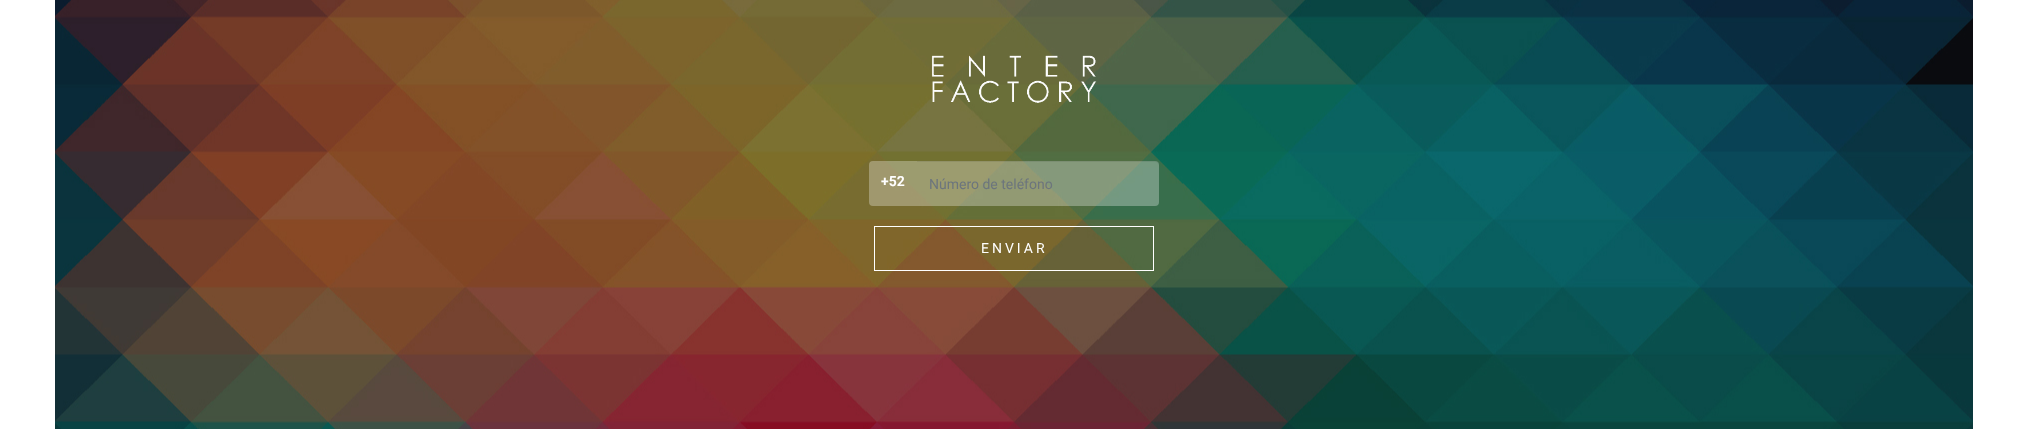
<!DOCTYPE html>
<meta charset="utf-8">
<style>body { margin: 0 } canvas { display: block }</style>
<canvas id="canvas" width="2028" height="429"></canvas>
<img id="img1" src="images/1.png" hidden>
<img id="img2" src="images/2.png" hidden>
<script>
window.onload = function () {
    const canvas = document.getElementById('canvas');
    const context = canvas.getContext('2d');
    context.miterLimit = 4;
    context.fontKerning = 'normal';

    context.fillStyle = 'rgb(255, 255, 255)';
    context.fillRect(0, 0, 2028, 429);
    context.drawImage(document.getElementById('img1'), 55, 0, 1918, 429);
    context.drawImage(document.getElementById('img2'), 931, 55, 166, 48);
    context.fillStyle = 'rgba(255, 255, 255, 0.3)';
    context.beginPath();
    context.roundRect(869, 161, 48, 45, [4, 0, 0, 4]);
    context.fill();
    context.beginPath();
    context.roundRect(917, 161, 242, 45, [0, 4, 4, 0]);
    context.fill();
    context.fillStyle = 'rgba(0, 0, 0, 0.07)';
    context.beginPath();
    context.moveTo(917, 162);
    context.lineTo(1155, 162);
    context.bezierCurveTo(1157, 162, 1159, 164, 1159, 166);
    context.bezierCurveTo(1159, 163, 1158, 161, 1155, 161);
    context.lineTo(917, 161);
    context.closePath();
    context.fill();
    context.strokeStyle = 'rgb(255, 255, 255)';
    context.strokeRect(874.5, 226.5, 279, 44);
    context.font = 'bold 14px Roboto';
    context.fillStyle = 'rgb(255, 255, 255)';
    context.fillText('+52', 881, 186);
    context.font = '14px Roboto';
    context.fillStyle = 'rgb(108, 117, 125)';
    context.fillText('Número de teléfono', 929, 189);
    context.letterSpacing = '3px';
    context.fillStyle = 'rgb(255, 255, 255)';
    context.fillText('ENVIAR', 981, 253);
};
</script>
